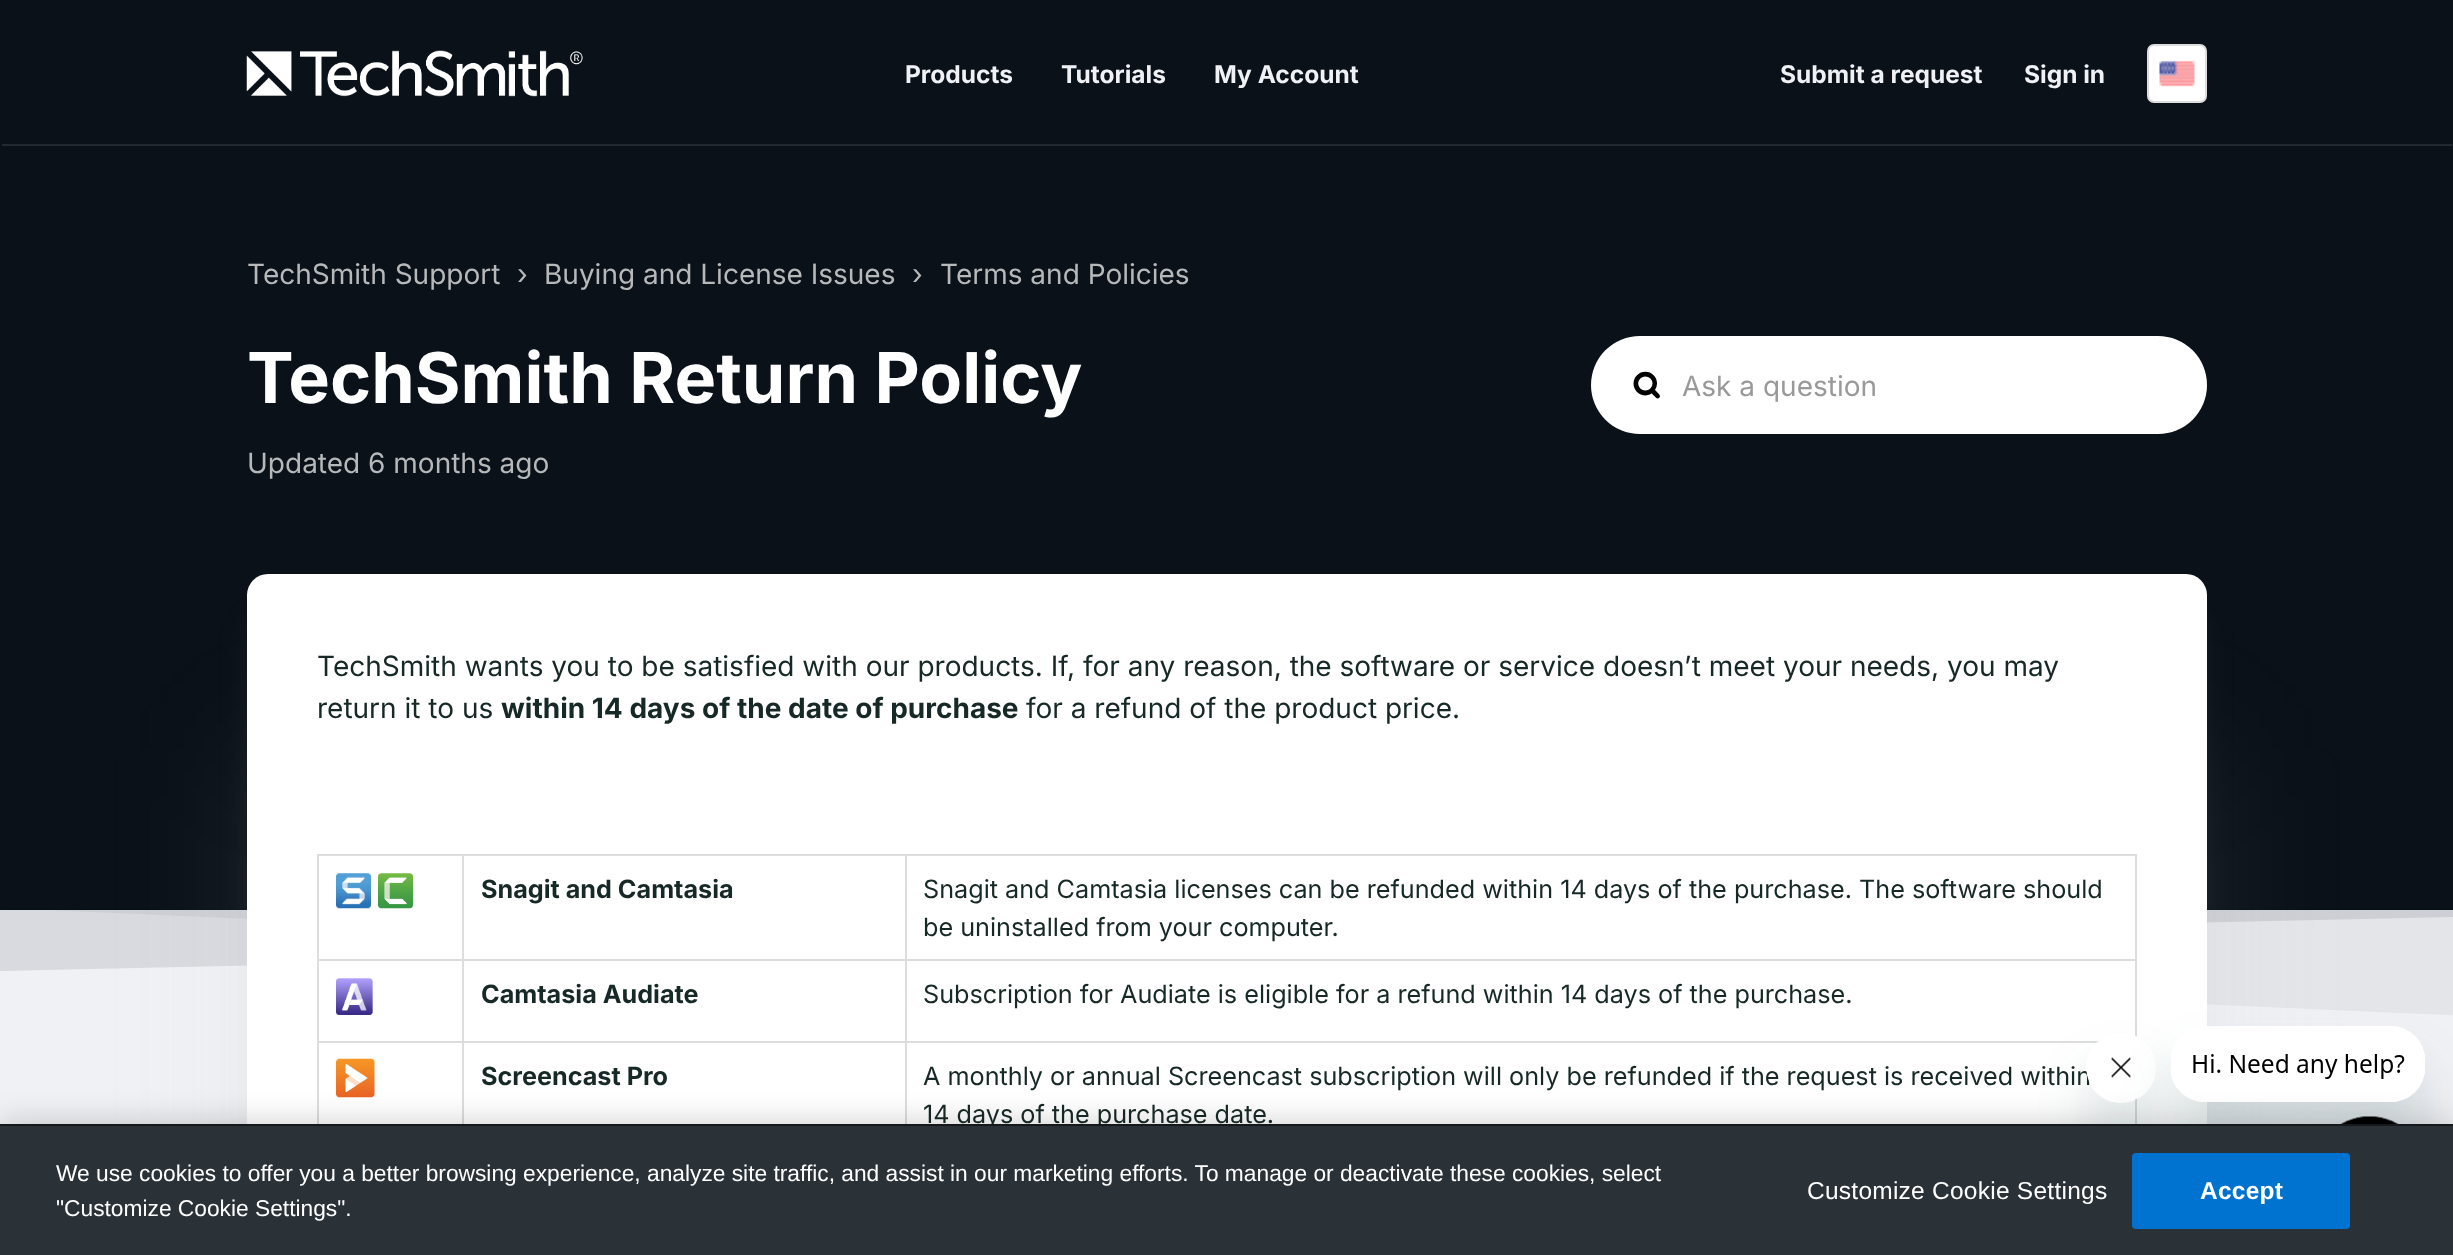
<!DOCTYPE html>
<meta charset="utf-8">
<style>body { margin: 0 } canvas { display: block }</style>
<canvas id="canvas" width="2453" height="1255"></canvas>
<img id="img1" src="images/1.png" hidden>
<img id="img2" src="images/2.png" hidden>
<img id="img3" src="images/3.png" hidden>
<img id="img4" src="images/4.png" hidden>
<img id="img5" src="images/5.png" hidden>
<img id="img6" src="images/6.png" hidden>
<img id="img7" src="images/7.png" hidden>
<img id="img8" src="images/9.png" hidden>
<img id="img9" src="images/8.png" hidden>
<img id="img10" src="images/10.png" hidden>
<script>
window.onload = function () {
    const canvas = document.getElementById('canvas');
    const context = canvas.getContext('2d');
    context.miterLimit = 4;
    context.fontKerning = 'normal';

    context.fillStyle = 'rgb(240, 241, 245)';
    context.fillRect(0, 0, 2453, 1255);
    context.fillStyle = 'rgb(10, 17, 25)';
    context.fillRect(0, 0, 2453, 910);
    context.drawImage(document.getElementById('img1'), 246, 50, 337, 47);
    context.fillStyle = 'rgb(255, 255, 255)';
    context.beginPath();
    context.roundRect(2148, 45, 58, 57, 6);
    context.fill();
    context.strokeStyle = 'rgb(221, 221, 221)';
    context.lineWidth = 2;
    context.stroke();
    context.drawImage(document.getElementById('img2'), 2159, 60, 36, 27);
    context.fillStyle = 'rgb(35, 41, 48)';
    context.fillRect(2, 144, 2450, 2);
    context.fillStyle = 'rgb(255, 255, 255)';
    context.beginPath();
    context.roundRect(1591, 336, 616, 98, 49);
    context.fill();
    context.drawImage(document.getElementById('img3'), 1633, 371, 27, 28);
    context.fillStyle = 'rgba(10, 17, 25, 0.05)';
    context.beginPath();
    context.moveTo(0, 908);
    context.lineTo(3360, 908);
    context.lineTo(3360, 1055);
    context.closePath();
    context.fill();
    context.fillStyle = 'rgba(10, 17, 25, 0.1)';
    context.beginPath();
    context.moveTo(0, 908);
    context.lineTo(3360, 908);
    context.lineTo(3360, 897);
    context.lineTo(0, 971);
    context.closePath();
    context.fill();
    context.fillStyle = 'rgba(182, 195, 193, 0.06)';
    context.filter = 'blur(15.5px)';
    context.beginPath();
    context.roundRect(247, 613, 1960, 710, 21);
    context.fill();
    context.filter = 'none';
    context.fillStyle = 'rgba(182, 195, 193, 0.1)';
    context.filter = 'blur(70px)';
    context.beginPath();
    context.roundRect(247, 749, 1960, 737, 21);
    context.fill();
    context.filter = 'none';
    context.fillStyle = 'rgb(255, 255, 255)';
    context.beginPath();
    context.roundRect(247, 574, 1960, 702, 21);
    context.fill();
    context.fillStyle = 'rgb(221, 221, 221)';
    context.fillRect(905, 854, 1232, 2);
    context.fillRect(905, 959, 1232, 2);
    context.fillRect(905, 1041, 1194, 2);
    context.fillRect(905, 1041, 2, 83);
    context.fillRect(462, 1041, 445, 2);
    context.fillRect(905, 959, 2, 84);
    context.fillRect(462, 959, 445, 2);
    context.fillRect(905, 854, 2, 107);
    context.fillRect(462, 854, 445, 2);
    context.fillRect(462, 1041, 2, 83);
    context.fillRect(317, 1041, 147, 2);
    context.fillRect(462, 959, 2, 84);
    context.fillRect(317, 959, 147, 2);
    context.fillRect(462, 854, 2, 107);
    context.fillRect(317, 854, 147, 2);
    context.fillRect(317, 1041, 2, 83);
    context.fillRect(317, 959, 2, 84);
    context.fillRect(317, 854, 2, 107);
    context.drawImage(document.getElementById('img4'), 336, 873, 35, 36);
    context.drawImage(document.getElementById('img5'), 378, 873, 35, 36);
    context.fillRect(2135, 959, 2, 84);
    context.fillRect(2135, 854, 2, 107);
    context.drawImage(document.getElementById('img6'), 336, 978, 37, 37);
    context.drawImage(document.getElementById('img7'), 336, 1058, 39, 40);
    context.fillRect(2135, 1097, 2, 27);
    context.save();
    context.beginPath();
    context.moveTo(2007, 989);
    context.lineTo(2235, 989);
    context.lineTo(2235, 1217);
    context.lineTo(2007, 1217);
    context.closePath();
    context.moveTo(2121, 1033);
    context.bezierCurveTo(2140.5, 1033, 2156, 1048.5, 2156, 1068);
    context.bezierCurveTo(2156, 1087.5, 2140.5, 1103, 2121, 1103);
    context.bezierCurveTo(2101.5, 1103, 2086, 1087.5, 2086, 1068);
    context.bezierCurveTo(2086, 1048.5, 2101.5, 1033, 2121, 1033);
    context.closePath();
    context.clip('evenodd');
    context.fillStyle = 'rgba(23, 73, 77, 0.15)';
    context.filter = 'blur(26px)';
    context.beginPath();
    context.roundRect(2086, 1068, 70, 70, 35);
    context.fill();
    context.filter = 'none';
    context.restore();
    context.font = 'bold 24.5px Inter';
    context.fillStyle = 'rgb(240, 241, 245)';
    context.fillText('Products', 905, 83);
    context.fillText('Tutorials', 1061, 83);
    context.fillText('My Account', 1214, 83);
    context.fillText('Submit a request', 1780, 83);
    context.fillText('Sign in', 2024, 83);
    context.font = '28px Inter';
    context.fillStyle = 'rgb(182, 184, 186)';
    context.fillText('TechSmith Support', 247, 284);
    context.fillText('›', 517, 284);
    context.fillText('Buying and License Issues', 544, 284);
    context.fillText('›', 912, 284);
    context.fillText('Terms and Policies', 940, 284);
    context.font = 'bold 70px Inter';
    context.fillStyle = 'rgb(255, 255, 255)';
    context.fillText('TechSmith Return Policy', 247, 403);
    context.font = '28px Inter';
    context.fillStyle = 'rgb(182, 184, 186)';
    context.fillText('Updated 6 months ago', 247, 473);
    context.fillStyle = 'rgb(153, 153, 153)';
    context.fillText('Ask a question', 1682, 396);
    context.fillStyle = 'rgb(23, 41, 38)';
    context.fillText('TechSmith wants you to be satisfied with our products. If, for any reason, the software or service doesn’t meet your needs, you may', 317, 676);
    context.fillText('return it to us', 317, 718);
    context.font = 'bold 28px Inter';
    context.fillText('within 14 days of the date of purchase', 501, 718);
    context.font = '28px Inter';
    context.fillText('for a refund of the product price.', 1026, 718);
    context.font = 'bold 25.2px Inter';
    context.fillText('Snagit and Camtasia', 481, 898);
    context.font = '25.2px Inter';
    context.fillText('Snagit and Camtasia licenses can be refunded within 14 days of the purchase. The software should', 923, 898);
    context.fillText('be uninstalled from your computer.', 923, 936);
    context.font = 'bold 25.2px Inter';
    context.fillText('Camtasia Audiate', 481, 1003);
    context.font = '25.2px Inter';
    context.fillText('Subscription for Audiate is eligible for a refund within 14 days of the purchase.', 923, 1003);
    context.font = 'bold 25.2px Inter';
    context.fillText('Screencast Pro', 481, 1085);
    context.font = '25.2px Inter';
    context.fillText('A monthly or annual Screencast subscription will only be refunded if the request is received within', 923, 1085);
    context.fillText('14 days of the purchase date.', 923, 1123);
    context.drawImage(document.getElementById('img8'), 2086, 1035, 51, 68);
    context.fillStyle = 'rgba(23, 73, 77, 0.15)';
    context.filter = 'blur(26px)';
    context.beginPath();
    context.roundRect(2170, 1061, 256, 77, 35);
    context.fill();
    context.filter = 'none';
    context.drawImage(document.getElementById('img9'), 2171, 1026, 254, 76);
    context.drawImage(document.getElementById('img10'), 2340, 1116, 59, 8);
    context.fillStyle = 'rgba(0, 0, 0, 0.2)';
    context.filter = 'blur(16px)';
    context.beginPath();
    context.rect(0, 1124, 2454, 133);
    context.fill();
    context.filter = 'none';
    context.fillStyle = 'rgb(42, 49, 55)';
    context.fillRect(0, 1126, 2453, 129);
    context.fillStyle = 'rgb(21, 25, 28)';
    context.fillRect(0, 1124, 2453, 2);
    context.font = '22.75px Liberation Sans';
    context.fillStyle = 'rgb(255, 255, 255)';
    context.fillText('We use cookies to offer you a better browsing experience, analyze site traffic, and assist in our marketing efforts. To manage or deactivate these cookies, select', 56, 1181);
    context.fillText('"Customize Cookie Settings".', 56, 1216);
    context.letterSpacing = '0.25px';
    context.font = '24.5px Liberation Sans';
    context.fillText('Customize Cookie Settings', 1807, 1199);
    context.fillStyle = 'rgb(0, 114, 207)';
    context.beginPath();
    context.roundRect(2132, 1153, 218, 76, 4);
    context.fill();
    context.font = 'bold 24.5px Liberation Sans';
    context.fillStyle = 'rgb(255, 255, 255)';
    context.fillText('Accept', 2200, 1199);
};
</script>
